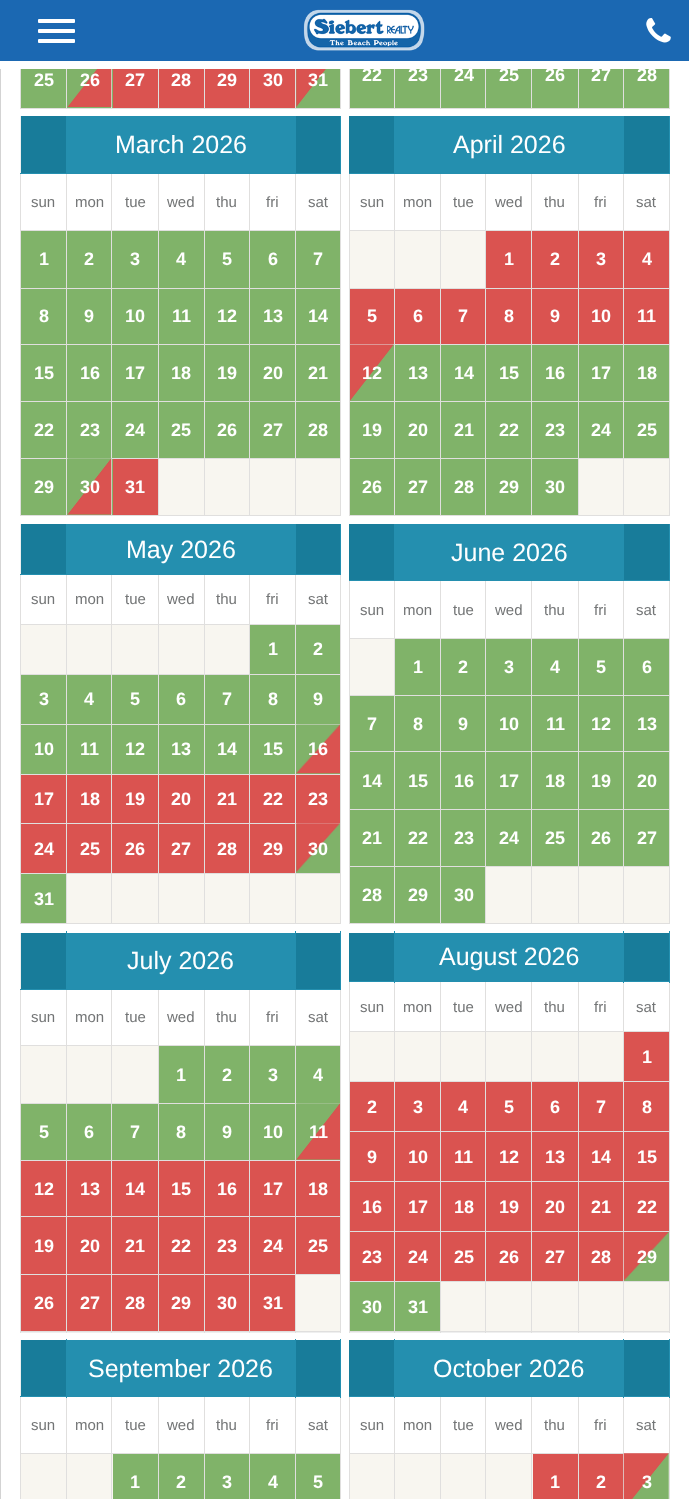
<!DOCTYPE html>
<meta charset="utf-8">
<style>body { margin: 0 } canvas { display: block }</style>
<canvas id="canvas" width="689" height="1499"></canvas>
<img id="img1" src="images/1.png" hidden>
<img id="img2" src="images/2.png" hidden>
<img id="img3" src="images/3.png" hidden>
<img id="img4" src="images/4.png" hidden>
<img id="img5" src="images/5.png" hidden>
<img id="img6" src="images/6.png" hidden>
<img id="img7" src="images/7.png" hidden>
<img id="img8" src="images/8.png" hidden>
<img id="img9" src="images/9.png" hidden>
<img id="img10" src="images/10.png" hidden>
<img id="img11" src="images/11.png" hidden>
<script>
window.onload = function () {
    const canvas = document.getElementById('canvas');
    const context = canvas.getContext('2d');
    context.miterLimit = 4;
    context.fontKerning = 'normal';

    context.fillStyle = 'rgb(255, 255, 255)';
    context.fillRect(0, 0, 689, 1499);
    context.fillStyle = 'rgb(27, 104, 178)';
    context.fillRect(0, 0, 689, 61);
    context.fillStyle = 'rgb(255, 255, 255)';
    context.beginPath();
    context.roundRect(38, 19, 37, 4, 1);
    context.fill();
    context.beginPath();
    context.roundRect(38, 29, 37, 4, 1);
    context.fill();
    context.beginPath();
    context.roundRect(38, 39, 37, 4, 1);
    context.fill();
    context.drawImage(document.getElementById('img1'), 303, 9, 122, 42);
    context.drawImage(document.getElementById('img2'), 646, 18, 25, 25);
    context.fillStyle = 'rgb(211, 211, 211)';
    context.fillRect(0, 69, 1, 1430);
    context.fillStyle = 'rgb(128, 179, 105)';
    context.fillRect(21, 69, 45, 39);
    context.fillStyle = 'rgb(224, 223, 222)';
    context.fillRect(340, 69, 1, 40);
    context.fillRect(295, 108, 46, 1);
    context.fillRect(295, 69, 1, 40);
    context.fillRect(249, 108, 47, 1);
    context.fillRect(249, 69, 1, 40);
    context.fillRect(204, 108, 46, 1);
    context.fillRect(204, 69, 1, 40);
    context.fillRect(158, 108, 47, 1);
    context.fillRect(158, 69, 1, 40);
    context.fillRect(111, 108, 48, 1);
    context.fillStyle = 'rgb(128, 179, 105)';
    context.fillRect(67, 69, 46, 39);
    context.fillStyle = 'rgb(224, 223, 222)';
    context.fillRect(111, 69, 1, 40);
    context.fillRect(66, 108, 47, 1);
    context.fillRect(66, 69, 1, 40);
    context.fillRect(20, 108, 48, 1);
    context.fillRect(20, 69, 1, 40);
    context.drawImage(document.getElementById('img3'), 67, 69, 45, 38);
    context.fillStyle = 'rgb(218, 83, 80)';
    context.fillRect(113, 69, 45, 39);
    context.fillRect(159, 69, 45, 39);
    context.fillRect(205, 69, 44, 39);
    context.fillRect(250, 69, 45, 39);
    context.fillStyle = 'rgb(128, 179, 105)';
    context.fillRect(296, 69, 44, 39);
    context.drawImage(document.getElementById('img4'), 296, 69, 44, 38);
    context.fillRect(350, 69, 44, 39);
    context.fillStyle = 'rgb(224, 223, 222)';
    context.fillRect(669, 69, 1, 40);
    context.fillRect(623, 108, 47, 1);
    context.fillRect(623, 69, 1, 40);
    context.fillRect(578, 108, 46, 1);
    context.fillRect(578, 69, 1, 40);
    context.fillRect(531, 108, 48, 1);
    context.fillStyle = 'rgb(128, 179, 105)';
    context.fillRect(486, 69, 92, 39);
    context.fillStyle = 'rgb(224, 223, 222)';
    context.fillRect(531, 69, 1, 40);
    context.fillRect(485, 108, 48, 1);
    context.fillRect(485, 69, 1, 40);
    context.fillRect(440, 108, 46, 1);
    context.fillRect(440, 69, 1, 40);
    context.fillRect(394, 108, 47, 1);
    context.fillRect(394, 69, 1, 40);
    context.fillRect(349, 108, 46, 1);
    context.fillRect(349, 69, 1, 40);
    context.fillStyle = 'rgb(128, 179, 105)';
    context.fillRect(395, 69, 45, 39);
    context.fillRect(441, 69, 44, 39);
    context.fillRect(579, 69, 44, 39);
    context.fillRect(624, 69, 45, 39);
    context.fillStyle = 'rgb(239, 239, 239)';
    context.fillRect(20, 116, 1, 57);
    context.fillStyle = 'rgb(24, 124, 154)';
    context.fillRect(21, 116, 45, 57);
    context.fillStyle = 'rgb(36, 143, 175)';
    context.fillRect(66, 116, 229, 57);
    context.fillStyle = 'rgb(224, 223, 222)';
    context.fillRect(295, 230, 46, 1);
    context.fillRect(295, 288, 46, 1);
    context.fillRect(295, 344, 46, 1);
    context.fillRect(295, 401, 46, 1);
    context.fillRect(295, 458, 46, 1);
    context.fillRect(340, 458, 1, 58);
    context.fillRect(340, 401, 1, 58);
    context.fillRect(340, 344, 1, 59);
    context.fillRect(340, 288, 1, 57);
    context.fillRect(340, 173, 1, 116);
    context.fillStyle = 'rgb(36, 143, 175)';
    context.fillRect(340, 116, 1, 58);
    context.fillStyle = 'rgb(224, 223, 222)';
    context.fillRect(295, 515, 46, 1);
    context.fillRect(295, 458, 1, 58);
    context.fillRect(249, 458, 47, 1);
    context.fillRect(295, 401, 1, 58);
    context.fillRect(249, 401, 47, 1);
    context.fillRect(295, 344, 1, 59);
    context.fillRect(249, 344, 47, 1);
    context.fillRect(295, 288, 1, 57);
    context.fillRect(249, 288, 47, 1);
    context.fillRect(295, 230, 1, 59);
    context.fillRect(249, 230, 47, 1);
    context.fillRect(295, 173, 1, 58);
    context.fillStyle = 'rgb(36, 143, 175)';
    context.fillRect(295, 173, 46, 1);
    context.fillRect(295, 116, 1, 58);
    context.fillStyle = 'rgb(224, 223, 222)';
    context.fillRect(249, 515, 47, 1);
    context.fillRect(249, 458, 1, 58);
    context.fillRect(204, 458, 46, 1);
    context.fillRect(249, 401, 1, 58);
    context.fillRect(204, 401, 46, 1);
    context.fillRect(249, 344, 1, 59);
    context.fillRect(204, 344, 46, 1);
    context.fillRect(249, 288, 1, 57);
    context.fillRect(204, 288, 46, 1);
    context.fillRect(249, 230, 1, 59);
    context.fillRect(204, 230, 46, 1);
    context.fillRect(204, 515, 46, 1);
    context.fillRect(204, 458, 1, 58);
    context.fillRect(158, 458, 47, 1);
    context.fillRect(204, 401, 1, 58);
    context.fillRect(158, 401, 47, 1);
    context.fillRect(204, 344, 1, 59);
    context.fillRect(158, 344, 47, 1);
    context.fillRect(204, 288, 1, 57);
    context.fillRect(158, 288, 47, 1);
    context.fillRect(204, 230, 1, 59);
    context.fillRect(158, 230, 47, 1);
    context.fillRect(158, 515, 47, 1);
    context.fillRect(158, 458, 1, 58);
    context.fillRect(111, 458, 48, 1);
    context.fillRect(158, 401, 1, 58);
    context.fillRect(111, 401, 48, 1);
    context.fillRect(158, 344, 1, 59);
    context.fillRect(111, 344, 48, 1);
    context.fillRect(158, 288, 1, 57);
    context.fillRect(111, 288, 48, 1);
    context.fillRect(158, 230, 1, 59);
    context.fillRect(111, 230, 48, 1);
    context.fillStyle = 'rgb(128, 179, 105)';
    context.fillRect(67, 231, 91, 57);
    context.fillRect(67, 289, 91, 55);
    context.fillRect(67, 345, 91, 56);
    context.fillRect(67, 402, 91, 56);
    context.fillRect(67, 459, 46, 56);
    context.fillStyle = 'rgb(224, 223, 222)';
    context.fillRect(111, 515, 48, 1);
    context.fillRect(111, 458, 1, 58);
    context.fillRect(66, 458, 47, 1);
    context.fillRect(111, 401, 1, 58);
    context.fillRect(66, 401, 47, 1);
    context.fillRect(111, 344, 1, 59);
    context.fillRect(66, 344, 47, 1);
    context.fillRect(111, 288, 1, 57);
    context.fillRect(66, 288, 47, 1);
    context.fillRect(111, 230, 1, 59);
    context.fillRect(66, 230, 47, 1);
    context.fillRect(66, 515, 47, 1);
    context.fillRect(66, 458, 1, 58);
    context.fillRect(20, 458, 48, 1);
    context.fillRect(66, 401, 1, 58);
    context.fillRect(20, 401, 48, 1);
    context.fillRect(66, 344, 1, 59);
    context.fillRect(20, 344, 48, 1);
    context.fillRect(66, 288, 1, 57);
    context.fillRect(20, 288, 48, 1);
    context.fillRect(66, 230, 1, 59);
    context.fillRect(20, 230, 48, 1);
    context.fillRect(66, 173, 1, 58);
    context.fillRect(111, 173, 1, 58);
    context.fillRect(158, 173, 1, 58);
    context.fillRect(204, 173, 1, 58);
    context.fillRect(249, 173, 1, 58);
    context.fillRect(20, 515, 48, 1);
    context.fillRect(20, 458, 1, 58);
    context.fillRect(20, 401, 1, 58);
    context.fillRect(20, 344, 1, 59);
    context.fillRect(20, 288, 1, 57);
    context.fillRect(20, 173, 1, 116);
    context.fillStyle = 'rgb(36, 143, 175)';
    context.fillRect(20, 173, 276, 1);
    context.fillStyle = 'rgb(24, 124, 154)';
    context.fillRect(296, 116, 44, 57);
    context.fillStyle = 'rgb(128, 179, 105)';
    context.fillRect(21, 231, 45, 57);
    context.fillRect(159, 231, 45, 57);
    context.fillRect(205, 231, 44, 57);
    context.fillRect(250, 231, 45, 57);
    context.fillRect(296, 231, 44, 57);
    context.fillRect(21, 289, 45, 55);
    context.fillRect(159, 289, 45, 55);
    context.fillRect(205, 289, 44, 55);
    context.fillRect(250, 289, 45, 55);
    context.fillRect(296, 289, 44, 55);
    context.fillRect(21, 345, 45, 56);
    context.fillRect(159, 345, 45, 56);
    context.fillRect(205, 345, 44, 56);
    context.fillRect(250, 345, 45, 56);
    context.fillRect(296, 345, 44, 56);
    context.fillRect(21, 402, 45, 56);
    context.fillRect(159, 402, 45, 56);
    context.fillRect(205, 402, 44, 56);
    context.fillRect(250, 402, 45, 56);
    context.fillRect(296, 402, 44, 56);
    context.fillRect(21, 459, 45, 56);
    context.drawImage(document.getElementById('img5'), 67, 458, 45, 57);
    context.fillStyle = 'rgb(218, 83, 80)';
    context.fillRect(113, 459, 45, 56);
    context.fillStyle = 'rgb(248, 246, 240)';
    context.fillRect(159, 459, 45, 56);
    context.fillRect(205, 459, 44, 56);
    context.fillRect(250, 459, 45, 56);
    context.fillRect(296, 459, 44, 56);
    context.fillStyle = 'rgb(24, 124, 154)';
    context.fillRect(349, 116, 45, 57);
    context.fillStyle = 'rgb(224, 223, 222)';
    context.fillRect(623, 230, 47, 1);
    context.fillRect(623, 288, 47, 1);
    context.fillRect(623, 344, 47, 1);
    context.fillRect(623, 401, 47, 1);
    context.fillRect(623, 458, 47, 1);
    context.fillRect(669, 458, 1, 58);
    context.fillRect(669, 401, 1, 58);
    context.fillRect(669, 344, 1, 59);
    context.fillRect(669, 288, 1, 57);
    context.fillRect(669, 173, 1, 116);
    context.fillStyle = 'rgb(36, 143, 175)';
    context.fillRect(669, 116, 1, 58);
    context.fillStyle = 'rgb(224, 223, 222)';
    context.fillRect(623, 515, 47, 1);
    context.fillRect(623, 458, 1, 58);
    context.fillRect(578, 458, 46, 1);
    context.fillRect(623, 401, 1, 58);
    context.fillRect(578, 401, 46, 1);
    context.fillRect(623, 344, 1, 59);
    context.fillRect(578, 344, 46, 1);
    context.fillRect(623, 288, 1, 57);
    context.fillRect(578, 288, 46, 1);
    context.fillRect(623, 230, 1, 59);
    context.fillRect(578, 230, 46, 1);
    context.fillRect(578, 515, 46, 1);
    context.fillRect(578, 458, 1, 58);
    context.fillRect(531, 458, 48, 1);
    context.fillRect(578, 401, 1, 58);
    context.fillRect(531, 401, 48, 1);
    context.fillRect(578, 344, 1, 59);
    context.fillRect(531, 344, 48, 1);
    context.fillRect(578, 288, 1, 57);
    context.fillRect(531, 288, 48, 1);
    context.fillRect(578, 230, 1, 59);
    context.fillRect(531, 230, 48, 1);
    context.fillStyle = 'rgb(218, 83, 80)';
    context.fillRect(486, 231, 92, 57);
    context.fillRect(486, 289, 92, 55);
    context.fillStyle = 'rgb(128, 179, 105)';
    context.fillRect(486, 345, 92, 56);
    context.fillRect(486, 402, 92, 56);
    context.fillRect(486, 459, 92, 56);
    context.fillStyle = 'rgb(224, 223, 222)';
    context.fillRect(531, 515, 48, 1);
    context.fillRect(531, 458, 1, 58);
    context.fillRect(485, 458, 48, 1);
    context.fillRect(531, 401, 1, 58);
    context.fillRect(485, 401, 48, 1);
    context.fillRect(531, 344, 1, 59);
    context.fillRect(485, 344, 48, 1);
    context.fillRect(531, 288, 1, 57);
    context.fillRect(485, 288, 48, 1);
    context.fillRect(531, 230, 1, 59);
    context.fillRect(485, 230, 48, 1);
    context.fillRect(485, 515, 48, 1);
    context.fillRect(485, 458, 1, 58);
    context.fillRect(440, 458, 46, 1);
    context.fillRect(485, 401, 1, 58);
    context.fillRect(440, 401, 46, 1);
    context.fillRect(485, 344, 1, 59);
    context.fillRect(440, 344, 46, 1);
    context.fillRect(485, 288, 1, 57);
    context.fillRect(440, 288, 46, 1);
    context.fillRect(485, 230, 1, 59);
    context.fillRect(440, 230, 46, 1);
    context.fillRect(440, 515, 46, 1);
    context.fillRect(440, 458, 1, 58);
    context.fillRect(394, 458, 47, 1);
    context.fillRect(440, 401, 1, 58);
    context.fillRect(394, 401, 47, 1);
    context.fillRect(440, 344, 1, 59);
    context.fillRect(394, 344, 47, 1);
    context.fillRect(440, 288, 1, 57);
    context.fillRect(394, 288, 47, 1);
    context.fillRect(440, 230, 1, 59);
    context.fillRect(394, 230, 47, 1);
    context.fillRect(394, 515, 47, 1);
    context.fillRect(394, 458, 1, 58);
    context.fillRect(349, 458, 46, 1);
    context.fillRect(394, 401, 1, 58);
    context.fillRect(349, 401, 46, 1);
    context.fillRect(394, 344, 1, 59);
    context.fillRect(349, 344, 46, 1);
    context.fillRect(394, 288, 1, 57);
    context.fillRect(349, 288, 46, 1);
    context.fillRect(394, 230, 1, 59);
    context.fillRect(349, 230, 46, 1);
    context.fillRect(394, 173, 1, 58);
    context.fillRect(440, 173, 1, 58);
    context.fillRect(485, 173, 1, 58);
    context.fillRect(531, 173, 1, 58);
    context.fillRect(578, 173, 1, 58);
    context.fillRect(623, 173, 1, 58);
    context.fillStyle = 'rgb(36, 143, 175)';
    context.fillRect(394, 173, 276, 1);
    context.fillRect(394, 116, 1, 58);
    context.fillStyle = 'rgb(224, 223, 222)';
    context.fillRect(349, 515, 46, 1);
    context.fillRect(349, 458, 1, 58);
    context.fillRect(349, 401, 1, 58);
    context.fillRect(349, 344, 1, 59);
    context.fillRect(349, 288, 1, 57);
    context.fillRect(349, 173, 1, 116);
    context.fillStyle = 'rgb(36, 143, 175)';
    context.fillRect(349, 173, 46, 1);
    context.fillStyle = 'rgb(24, 124, 154)';
    context.fillRect(624, 116, 45, 57);
    context.fillStyle = 'rgb(36, 143, 175)';
    context.fillRect(395, 116, 229, 57);
    context.fillStyle = 'rgb(248, 246, 240)';
    context.fillRect(350, 231, 44, 57);
    context.fillRect(395, 231, 45, 57);
    context.fillRect(441, 231, 44, 57);
    context.fillStyle = 'rgb(218, 83, 80)';
    context.fillRect(579, 231, 44, 57);
    context.fillRect(624, 231, 45, 57);
    context.fillRect(350, 289, 44, 55);
    context.fillRect(395, 289, 45, 55);
    context.fillRect(441, 289, 44, 55);
    context.fillRect(579, 289, 44, 55);
    context.fillRect(624, 289, 45, 55);
    context.fillStyle = 'rgb(128, 179, 105)';
    context.fillRect(350, 345, 44, 56);
    context.drawImage(document.getElementById('img6'), 350, 344, 44, 57);
    context.fillRect(395, 345, 45, 56);
    context.fillRect(441, 345, 44, 56);
    context.fillRect(579, 345, 44, 56);
    context.fillRect(624, 345, 45, 56);
    context.fillRect(350, 402, 44, 56);
    context.fillRect(395, 402, 45, 56);
    context.fillRect(441, 402, 44, 56);
    context.fillRect(579, 402, 44, 56);
    context.fillRect(624, 402, 45, 56);
    context.fillRect(350, 459, 44, 56);
    context.fillRect(395, 459, 45, 56);
    context.fillRect(441, 459, 44, 56);
    context.fillStyle = 'rgb(248, 246, 240)';
    context.fillRect(579, 459, 44, 56);
    context.fillRect(624, 459, 45, 56);
    context.fillStyle = 'rgb(239, 239, 239)';
    context.fillRect(20, 524, 1, 50);
    context.fillStyle = 'rgb(24, 124, 154)';
    context.fillRect(21, 524, 45, 50);
    context.fillStyle = 'rgb(36, 143, 175)';
    context.fillRect(66, 524, 229, 50);
    context.fillStyle = 'rgb(224, 223, 222)';
    context.fillRect(295, 624, 46, 1);
    context.fillRect(295, 674, 46, 1);
    context.fillRect(295, 724, 46, 1);
    context.fillRect(295, 774, 46, 1);
    context.fillRect(295, 823, 46, 1);
    context.fillRect(295, 873, 46, 1);
    context.fillRect(340, 873, 1, 51);
    context.fillRect(340, 823, 1, 51);
    context.fillRect(340, 774, 1, 50);
    context.fillRect(340, 724, 1, 51);
    context.fillRect(340, 674, 1, 51);
    context.fillRect(340, 574, 1, 101);
    context.fillStyle = 'rgb(36, 143, 175)';
    context.fillRect(340, 524, 1, 51);
    context.fillStyle = 'rgb(224, 223, 222)';
    context.fillRect(295, 923, 46, 1);
    context.fillRect(295, 873, 1, 51);
    context.fillRect(249, 873, 47, 1);
    context.fillRect(295, 823, 1, 51);
    context.fillRect(249, 823, 47, 1);
    context.fillRect(295, 774, 1, 50);
    context.fillRect(249, 774, 47, 1);
    context.fillRect(295, 724, 1, 51);
    context.fillRect(249, 724, 47, 1);
    context.fillRect(295, 674, 1, 51);
    context.fillRect(249, 674, 47, 1);
    context.fillRect(295, 624, 1, 51);
    context.fillRect(249, 624, 47, 1);
    context.fillRect(295, 574, 1, 51);
    context.fillStyle = 'rgb(36, 143, 175)';
    context.fillRect(295, 574, 46, 1);
    context.fillRect(295, 524, 1, 51);
    context.fillStyle = 'rgb(224, 223, 222)';
    context.fillRect(249, 923, 47, 1);
    context.fillRect(249, 873, 1, 51);
    context.fillRect(204, 873, 46, 1);
    context.fillRect(249, 823, 1, 51);
    context.fillRect(204, 823, 46, 1);
    context.fillRect(249, 774, 1, 50);
    context.fillRect(204, 774, 46, 1);
    context.fillRect(249, 724, 1, 51);
    context.fillRect(204, 724, 46, 1);
    context.fillRect(249, 674, 1, 51);
    context.fillRect(204, 674, 46, 1);
    context.fillRect(249, 624, 1, 51);
    context.fillRect(204, 624, 46, 1);
    context.fillRect(204, 923, 46, 1);
    context.fillRect(204, 873, 1, 51);
    context.fillRect(158, 873, 47, 1);
    context.fillRect(204, 823, 1, 51);
    context.fillRect(158, 823, 47, 1);
    context.fillRect(204, 774, 1, 50);
    context.fillRect(158, 774, 47, 1);
    context.fillRect(204, 724, 1, 51);
    context.fillRect(158, 724, 47, 1);
    context.fillRect(204, 674, 1, 51);
    context.fillRect(158, 674, 47, 1);
    context.fillRect(204, 624, 1, 51);
    context.fillRect(158, 624, 47, 1);
    context.fillRect(158, 923, 47, 1);
    context.fillRect(158, 873, 1, 51);
    context.fillRect(111, 873, 48, 1);
    context.fillRect(158, 823, 1, 51);
    context.fillRect(111, 823, 48, 1);
    context.fillRect(158, 774, 1, 50);
    context.fillRect(111, 774, 48, 1);
    context.fillRect(158, 724, 1, 51);
    context.fillRect(111, 724, 48, 1);
    context.fillRect(158, 674, 1, 51);
    context.fillRect(111, 674, 48, 1);
    context.fillRect(158, 624, 1, 51);
    context.fillRect(111, 624, 48, 1);
    context.fillStyle = 'rgb(248, 246, 240)';
    context.fillRect(67, 625, 91, 49);
    context.fillStyle = 'rgb(128, 179, 105)';
    context.fillRect(67, 675, 91, 49);
    context.fillRect(67, 725, 91, 49);
    context.fillStyle = 'rgb(218, 83, 80)';
    context.fillRect(67, 775, 91, 48);
    context.fillRect(67, 824, 91, 49);
    context.fillStyle = 'rgb(248, 246, 240)';
    context.fillRect(67, 874, 91, 49);
    context.fillStyle = 'rgb(224, 223, 222)';
    context.fillRect(111, 923, 48, 1);
    context.fillRect(111, 873, 1, 51);
    context.fillRect(66, 873, 47, 1);
    context.fillRect(111, 823, 1, 51);
    context.fillRect(66, 823, 47, 1);
    context.fillRect(111, 774, 1, 50);
    context.fillRect(66, 774, 47, 1);
    context.fillRect(111, 724, 1, 51);
    context.fillRect(66, 724, 47, 1);
    context.fillRect(111, 674, 1, 51);
    context.fillRect(66, 674, 47, 1);
    context.fillRect(111, 624, 1, 51);
    context.fillRect(66, 624, 47, 1);
    context.fillRect(66, 923, 47, 1);
    context.fillRect(66, 873, 1, 51);
    context.fillRect(20, 873, 48, 1);
    context.fillRect(66, 823, 1, 51);
    context.fillRect(20, 823, 48, 1);
    context.fillRect(66, 774, 1, 50);
    context.fillRect(20, 774, 48, 1);
    context.fillRect(66, 724, 1, 51);
    context.fillRect(20, 724, 48, 1);
    context.fillRect(66, 674, 1, 51);
    context.fillRect(20, 674, 48, 1);
    context.fillRect(66, 624, 1, 51);
    context.fillRect(20, 624, 48, 1);
    context.fillRect(66, 574, 1, 51);
    context.fillRect(111, 574, 1, 51);
    context.fillRect(158, 574, 1, 51);
    context.fillRect(204, 574, 1, 51);
    context.fillRect(249, 574, 1, 51);
    context.fillRect(20, 923, 48, 1);
    context.fillRect(20, 873, 1, 51);
    context.fillRect(20, 823, 1, 51);
    context.fillRect(20, 774, 1, 50);
    context.fillRect(20, 724, 1, 51);
    context.fillRect(20, 674, 1, 51);
    context.fillRect(20, 574, 1, 101);
    context.fillStyle = 'rgb(36, 143, 175)';
    context.fillRect(20, 574, 276, 1);
    context.fillStyle = 'rgb(24, 124, 154)';
    context.fillRect(296, 524, 44, 50);
    context.fillStyle = 'rgb(248, 246, 240)';
    context.fillRect(21, 625, 45, 49);
    context.fillRect(159, 625, 45, 49);
    context.fillRect(205, 625, 44, 49);
    context.fillStyle = 'rgb(128, 179, 105)';
    context.fillRect(250, 625, 45, 49);
    context.fillRect(296, 625, 44, 49);
    context.fillRect(21, 675, 45, 49);
    context.fillRect(159, 675, 45, 49);
    context.fillRect(205, 675, 44, 49);
    context.fillRect(250, 675, 45, 49);
    context.fillRect(296, 675, 44, 49);
    context.fillRect(21, 725, 45, 49);
    context.fillRect(159, 725, 45, 49);
    context.fillRect(205, 725, 44, 49);
    context.fillRect(250, 725, 45, 49);
    context.fillRect(296, 725, 44, 49);
    context.drawImage(document.getElementById('img7'), 296, 724, 44, 50);
    context.fillStyle = 'rgb(218, 83, 80)';
    context.fillRect(21, 775, 45, 48);
    context.fillRect(159, 775, 45, 48);
    context.fillRect(205, 775, 44, 48);
    context.fillRect(250, 775, 45, 48);
    context.fillRect(296, 775, 44, 48);
    context.fillRect(21, 824, 45, 49);
    context.fillRect(159, 824, 45, 49);
    context.fillRect(205, 824, 44, 49);
    context.fillRect(250, 824, 45, 49);
    context.fillStyle = 'rgb(128, 179, 105)';
    context.fillRect(296, 824, 44, 49);
    context.drawImage(document.getElementById('img8'), 296, 823, 44, 49);
    context.fillRect(21, 874, 45, 49);
    context.fillStyle = 'rgb(248, 246, 240)';
    context.fillRect(159, 874, 45, 49);
    context.fillRect(205, 874, 44, 49);
    context.fillRect(250, 874, 45, 49);
    context.fillRect(296, 874, 44, 49);
    context.fillStyle = 'rgb(24, 124, 154)';
    context.fillRect(349, 524, 45, 56);
    context.fillStyle = 'rgb(224, 223, 222)';
    context.fillRect(623, 638, 47, 1);
    context.fillRect(623, 695, 47, 1);
    context.fillStyle = 'rgb(128, 179, 105)';
    context.fillRect(624, 696, 45, 113);
    context.fillStyle = 'rgb(224, 223, 222)';
    context.fillRect(623, 751, 47, 1);
    context.fillRect(623, 809, 47, 1);
    context.fillRect(623, 866, 47, 1);
    context.fillRect(669, 866, 1, 58);
    context.fillRect(669, 809, 1, 59);
    context.fillRect(669, 751, 1, 59);
    context.fillRect(669, 695, 1, 58);
    context.fillRect(669, 580, 1, 116);
    context.fillStyle = 'rgb(36, 143, 175)';
    context.fillRect(669, 524, 1, 57);
    context.fillStyle = 'rgb(128, 179, 105)';
    context.fillRect(579, 696, 44, 113);
    context.fillStyle = 'rgb(224, 223, 222)';
    context.fillRect(623, 923, 47, 1);
    context.fillRect(623, 866, 1, 58);
    context.fillRect(578, 866, 46, 1);
    context.fillRect(623, 809, 1, 59);
    context.fillRect(578, 809, 46, 1);
    context.fillRect(623, 751, 1, 59);
    context.fillRect(578, 751, 46, 1);
    context.fillRect(623, 695, 1, 58);
    context.fillRect(578, 695, 46, 1);
    context.fillRect(623, 638, 1, 58);
    context.fillRect(578, 638, 46, 1);
    context.fillStyle = 'rgb(128, 179, 105)';
    context.fillRect(486, 696, 92, 57);
    context.fillStyle = 'rgb(224, 223, 222)';
    context.fillRect(578, 923, 46, 1);
    context.fillRect(578, 866, 1, 58);
    context.fillRect(531, 866, 48, 1);
    context.fillRect(578, 809, 1, 59);
    context.fillRect(531, 809, 48, 1);
    context.fillRect(578, 751, 1, 59);
    context.fillRect(531, 751, 48, 1);
    context.fillRect(578, 695, 1, 58);
    context.fillRect(531, 695, 48, 1);
    context.fillRect(578, 638, 1, 58);
    context.fillRect(531, 638, 48, 1);
    context.fillStyle = 'rgb(128, 179, 105)';
    context.fillRect(486, 639, 92, 56);
    context.fillRect(486, 753, 92, 56);
    context.fillRect(486, 810, 92, 56);
    context.fillStyle = 'rgb(248, 246, 240)';
    context.fillRect(486, 867, 92, 56);
    context.fillStyle = 'rgb(224, 223, 222)';
    context.fillRect(531, 923, 48, 1);
    context.fillRect(531, 866, 1, 58);
    context.fillRect(485, 866, 48, 1);
    context.fillRect(531, 809, 1, 59);
    context.fillRect(485, 809, 48, 1);
    context.fillRect(531, 751, 1, 59);
    context.fillRect(485, 751, 48, 1);
    context.fillRect(531, 695, 1, 58);
    context.fillRect(485, 695, 48, 1);
    context.fillRect(531, 638, 1, 58);
    context.fillRect(485, 638, 48, 1);
    context.fillStyle = 'rgb(128, 179, 105)';
    context.fillRect(441, 696, 44, 113);
    context.fillStyle = 'rgb(224, 223, 222)';
    context.fillRect(485, 923, 48, 1);
    context.fillRect(485, 866, 1, 58);
    context.fillRect(440, 866, 46, 1);
    context.fillRect(485, 809, 1, 59);
    context.fillRect(440, 809, 46, 1);
    context.fillRect(485, 751, 1, 59);
    context.fillRect(440, 751, 46, 1);
    context.fillRect(485, 695, 1, 58);
    context.fillRect(440, 695, 46, 1);
    context.fillRect(485, 638, 1, 58);
    context.fillRect(440, 638, 46, 1);
    context.fillStyle = 'rgb(128, 179, 105)';
    context.fillRect(395, 696, 45, 113);
    context.fillStyle = 'rgb(224, 223, 222)';
    context.fillRect(440, 923, 46, 1);
    context.fillRect(440, 866, 1, 58);
    context.fillRect(394, 866, 47, 1);
    context.fillRect(440, 809, 1, 59);
    context.fillRect(394, 809, 47, 1);
    context.fillRect(440, 751, 1, 59);
    context.fillRect(394, 751, 47, 1);
    context.fillRect(440, 695, 1, 58);
    context.fillRect(394, 695, 47, 1);
    context.fillRect(440, 638, 1, 58);
    context.fillRect(394, 638, 47, 1);
    context.fillStyle = 'rgb(128, 179, 105)';
    context.fillRect(350, 696, 44, 113);
    context.fillStyle = 'rgb(224, 223, 222)';
    context.fillRect(394, 923, 47, 1);
    context.fillRect(394, 866, 1, 58);
    context.fillRect(349, 866, 46, 1);
    context.fillRect(394, 809, 1, 59);
    context.fillRect(349, 809, 46, 1);
    context.fillRect(394, 751, 1, 59);
    context.fillRect(349, 751, 46, 1);
    context.fillRect(394, 695, 1, 58);
    context.fillRect(349, 695, 46, 1);
    context.fillRect(394, 638, 1, 58);
    context.fillRect(349, 638, 46, 1);
    context.fillRect(394, 580, 1, 59);
    context.fillRect(440, 580, 1, 59);
    context.fillRect(485, 580, 1, 59);
    context.fillRect(531, 580, 1, 59);
    context.fillRect(578, 580, 1, 59);
    context.fillRect(623, 580, 1, 59);
    context.fillStyle = 'rgb(36, 143, 175)';
    context.fillRect(394, 580, 276, 1);
    context.fillRect(394, 524, 1, 57);
    context.fillStyle = 'rgb(224, 223, 222)';
    context.fillRect(349, 923, 46, 1);
    context.fillRect(349, 866, 1, 58);
    context.fillRect(349, 809, 1, 59);
    context.fillRect(349, 751, 1, 59);
    context.fillRect(349, 695, 1, 58);
    context.fillRect(349, 580, 1, 116);
    context.fillStyle = 'rgb(36, 143, 175)';
    context.fillRect(349, 580, 46, 1);
    context.fillStyle = 'rgb(24, 124, 154)';
    context.fillRect(624, 524, 45, 56);
    context.fillStyle = 'rgb(36, 143, 175)';
    context.fillRect(395, 524, 229, 56);
    context.fillStyle = 'rgb(248, 246, 240)';
    context.fillRect(350, 639, 44, 56);
    context.fillStyle = 'rgb(128, 179, 105)';
    context.fillRect(395, 639, 45, 56);
    context.fillRect(441, 639, 44, 56);
    context.fillRect(579, 639, 44, 56);
    context.fillRect(624, 639, 45, 56);
    context.fillRect(350, 810, 44, 56);
    context.fillRect(395, 810, 45, 56);
    context.fillRect(441, 810, 44, 56);
    context.fillRect(579, 810, 44, 56);
    context.fillRect(624, 810, 45, 56);
    context.fillRect(350, 867, 44, 56);
    context.fillRect(395, 867, 45, 56);
    context.fillRect(441, 867, 44, 56);
    context.fillStyle = 'rgb(248, 246, 240)';
    context.fillRect(579, 867, 44, 56);
    context.fillRect(624, 867, 45, 56);
    context.fillStyle = 'rgb(239, 239, 239)';
    context.fillRect(20, 933, 320, 400);
    context.fillStyle = 'rgb(24, 124, 154)';
    context.fillRect(21, 933, 45, 56);
    context.fillStyle = 'rgb(224, 223, 222)';
    context.fillRect(295, 1045, 46, 1);
    context.fillRect(295, 1103, 46, 1);
    context.fillRect(295, 1160, 46, 1);
    context.fillStyle = 'rgb(218, 83, 80)';
    context.fillRect(296, 1161, 44, 113);
    context.fillStyle = 'rgb(224, 223, 222)';
    context.fillRect(295, 1216, 46, 1);
    context.fillRect(295, 1274, 46, 1);
    context.fillRect(340, 1274, 1, 59);
    context.fillRect(340, 1216, 1, 59);
    context.fillRect(340, 1160, 1, 58);
    context.fillRect(340, 1103, 1, 58);
    context.fillRect(340, 989, 1, 115);
    context.fillStyle = 'rgb(36, 143, 175)';
    context.fillRect(340, 931, 1, 59);
    context.fillStyle = 'rgb(218, 83, 80)';
    context.fillRect(250, 1161, 45, 113);
    context.fillStyle = 'rgb(224, 223, 222)';
    context.fillRect(295, 1331, 46, 1);
    context.fillRect(295, 1274, 1, 59);
    context.fillRect(249, 1274, 47, 1);
    context.fillRect(295, 1216, 1, 59);
    context.fillRect(249, 1216, 47, 1);
    context.fillRect(295, 1160, 1, 58);
    context.fillRect(249, 1160, 47, 1);
    context.fillRect(295, 1103, 1, 58);
    context.fillRect(249, 1103, 47, 1);
    context.fillRect(295, 1045, 1, 59);
    context.fillRect(249, 1045, 47, 1);
    context.fillRect(295, 989, 1, 57);
    context.fillStyle = 'rgb(36, 143, 175)';
    context.fillRect(295, 989, 46, 1);
    context.fillRect(295, 931, 1, 59);
    context.fillStyle = 'rgb(218, 83, 80)';
    context.fillRect(205, 1161, 44, 113);
    context.fillStyle = 'rgb(224, 223, 222)';
    context.fillRect(249, 1331, 47, 1);
    context.fillRect(249, 1274, 1, 59);
    context.fillRect(204, 1274, 46, 1);
    context.fillRect(249, 1216, 1, 59);
    context.fillRect(204, 1216, 46, 1);
    context.fillRect(249, 1160, 1, 58);
    context.fillRect(204, 1160, 46, 1);
    context.fillRect(249, 1103, 1, 58);
    context.fillRect(204, 1103, 46, 1);
    context.fillRect(249, 1045, 1, 59);
    context.fillRect(204, 1045, 46, 1);
    context.fillStyle = 'rgb(218, 83, 80)';
    context.fillRect(159, 1161, 45, 113);
    context.fillStyle = 'rgb(224, 223, 222)';
    context.fillRect(204, 1331, 46, 1);
    context.fillRect(204, 1274, 1, 59);
    context.fillRect(158, 1274, 47, 1);
    context.fillRect(204, 1216, 1, 59);
    context.fillRect(158, 1216, 47, 1);
    context.fillRect(204, 1160, 1, 58);
    context.fillRect(158, 1160, 47, 1);
    context.fillRect(204, 1103, 1, 58);
    context.fillRect(158, 1103, 47, 1);
    context.fillRect(204, 1045, 1, 59);
    context.fillRect(158, 1045, 47, 1);
    context.fillStyle = 'rgb(218, 83, 80)';
    context.fillRect(67, 1161, 91, 57);
    context.fillStyle = 'rgb(224, 223, 222)';
    context.fillRect(158, 1331, 47, 1);
    context.fillRect(158, 1274, 1, 59);
    context.fillRect(111, 1274, 48, 1);
    context.fillRect(158, 1216, 1, 59);
    context.fillRect(111, 1216, 48, 1);
    context.fillRect(158, 1160, 1, 58);
    context.fillRect(111, 1160, 48, 1);
    context.fillRect(158, 1103, 1, 58);
    context.fillRect(111, 1103, 48, 1);
    context.fillRect(158, 1045, 1, 59);
    context.fillRect(111, 1045, 48, 1);
    context.fillStyle = 'rgb(248, 246, 240)';
    context.fillRect(67, 1046, 91, 57);
    context.fillStyle = 'rgb(128, 179, 105)';
    context.fillRect(67, 1104, 91, 56);
    context.fillStyle = 'rgb(218, 83, 80)';
    context.fillRect(67, 1218, 91, 56);
    context.fillRect(67, 1275, 91, 56);
    context.fillStyle = 'rgb(224, 223, 222)';
    context.fillRect(111, 1331, 48, 1);
    context.fillRect(111, 1274, 1, 59);
    context.fillRect(66, 1274, 47, 1);
    context.fillRect(111, 1216, 1, 59);
    context.fillRect(66, 1216, 47, 1);
    context.fillRect(111, 1160, 1, 58);
    context.fillRect(66, 1160, 47, 1);
    context.fillRect(111, 1103, 1, 58);
    context.fillRect(66, 1103, 47, 1);
    context.fillRect(111, 1045, 1, 59);
    context.fillRect(66, 1045, 47, 1);
    context.fillStyle = 'rgb(218, 83, 80)';
    context.fillRect(21, 1161, 45, 113);
    context.fillStyle = 'rgb(224, 223, 222)';
    context.fillRect(66, 1331, 47, 1);
    context.fillRect(66, 1274, 1, 59);
    context.fillRect(20, 1274, 48, 1);
    context.fillRect(66, 1216, 1, 59);
    context.fillRect(20, 1216, 48, 1);
    context.fillRect(66, 1160, 1, 58);
    context.fillRect(20, 1160, 48, 1);
    context.fillRect(66, 1103, 1, 58);
    context.fillRect(20, 1103, 48, 1);
    context.fillRect(66, 1045, 1, 59);
    context.fillRect(20, 1045, 48, 1);
    context.fillRect(66, 989, 1, 57);
    context.fillStyle = 'rgb(255, 255, 255)';
    context.fillRect(67, 990, 91, 55);
    context.fillStyle = 'rgb(224, 223, 222)';
    context.fillRect(111, 989, 1, 57);
    context.fillRect(158, 989, 1, 57);
    context.fillRect(204, 989, 1, 57);
    context.fillRect(249, 989, 1, 57);
    context.fillStyle = 'rgb(36, 143, 175)';
    context.fillRect(66, 989, 230, 1);
    context.fillRect(66, 931, 1, 59);
    context.fillStyle = 'rgb(224, 223, 222)';
    context.fillRect(20, 1331, 48, 1);
    context.fillRect(20, 1274, 1, 59);
    context.fillRect(20, 1216, 1, 59);
    context.fillRect(20, 1160, 1, 58);
    context.fillRect(20, 1103, 1, 58);
    context.fillRect(20, 989, 1, 115);
    context.fillStyle = 'rgb(36, 143, 175)';
    context.fillRect(20, 989, 48, 1);
    context.fillRect(67, 933, 228, 56);
    context.fillStyle = 'rgb(24, 124, 154)';
    context.fillRect(296, 933, 44, 56);
    context.fillStyle = 'rgb(255, 255, 255)';
    context.fillRect(21, 990, 45, 55);
    context.fillRect(159, 990, 45, 55);
    context.fillRect(205, 990, 44, 55);
    context.fillRect(250, 990, 45, 55);
    context.fillRect(296, 990, 44, 55);
    context.fillStyle = 'rgb(248, 246, 240)';
    context.fillRect(21, 1046, 45, 57);
    context.fillStyle = 'rgb(128, 179, 105)';
    context.fillRect(159, 1046, 45, 57);
    context.fillRect(205, 1046, 44, 57);
    context.fillRect(250, 1046, 45, 57);
    context.fillRect(296, 1046, 44, 57);
    context.fillRect(21, 1104, 45, 56);
    context.fillRect(159, 1104, 45, 56);
    context.fillRect(205, 1104, 44, 56);
    context.fillRect(250, 1104, 45, 56);
    context.fillRect(296, 1104, 44, 56);
    context.drawImage(document.getElementById('img9'), 296, 1103, 44, 57);
    context.fillStyle = 'rgb(218, 83, 80)';
    context.fillRect(21, 1275, 45, 56);
    context.fillRect(159, 1275, 45, 56);
    context.fillRect(205, 1275, 44, 56);
    context.fillRect(250, 1275, 45, 56);
    context.fillStyle = 'rgb(248, 246, 240)';
    context.fillRect(296, 1275, 44, 56);
    context.fillStyle = 'rgb(239, 239, 239)';
    context.fillRect(350, 1332, 319, 1);
    context.fillStyle = 'rgb(24, 124, 154)';
    context.fillRect(349, 933, 45, 48);
    context.fillStyle = 'rgb(224, 223, 222)';
    context.fillRect(623, 1031, 47, 1);
    context.fillRect(623, 1081, 47, 1);
    context.fillRect(623, 1131, 47, 1);
    context.fillRect(623, 1181, 47, 1);
    context.fillRect(623, 1231, 47, 1);
    context.fillRect(623, 1281, 47, 1);
    context.fillRect(669, 1281, 1, 52);
    context.fillRect(669, 1231, 1, 52);
    context.fillRect(669, 1181, 1, 52);
    context.fillRect(669, 1131, 1, 52);
    context.fillRect(669, 1081, 1, 52);
    context.fillRect(669, 981, 1, 102);
    context.fillStyle = 'rgb(36, 143, 175)';
    context.fillRect(669, 931, 1, 52);
    context.fillStyle = 'rgb(224, 223, 222)';
    context.fillRect(623, 1331, 47, 1);
    context.fillRect(623, 1281, 1, 52);
    context.fillRect(578, 1281, 46, 1);
    context.fillRect(623, 1231, 1, 52);
    context.fillRect(578, 1231, 46, 1);
    context.fillRect(623, 1181, 1, 52);
    context.fillRect(578, 1181, 46, 1);
    context.fillRect(623, 1131, 1, 52);
    context.fillRect(578, 1131, 46, 1);
    context.fillRect(623, 1081, 1, 52);
    context.fillRect(578, 1081, 46, 1);
    context.fillRect(623, 1031, 1, 52);
    context.fillRect(578, 1031, 46, 1);
    context.fillRect(623, 981, 1, 52);
    context.fillStyle = 'rgb(36, 143, 175)';
    context.fillRect(623, 981, 47, 1);
    context.fillRect(623, 931, 1, 52);
    context.fillStyle = 'rgb(224, 223, 222)';
    context.fillRect(578, 1331, 46, 1);
    context.fillRect(578, 1281, 1, 52);
    context.fillRect(531, 1281, 48, 1);
    context.fillRect(578, 1231, 1, 52);
    context.fillRect(531, 1231, 48, 1);
    context.fillRect(578, 1181, 1, 52);
    context.fillRect(531, 1181, 48, 1);
    context.fillRect(578, 1131, 1, 52);
    context.fillRect(531, 1131, 48, 1);
    context.fillRect(578, 1081, 1, 52);
    context.fillRect(531, 1081, 48, 1);
    context.fillRect(578, 1031, 1, 52);
    context.fillRect(531, 1031, 48, 1);
    context.fillStyle = 'rgb(248, 246, 240)';
    context.fillRect(486, 1032, 92, 49);
    context.fillStyle = 'rgb(218, 83, 80)';
    context.fillRect(486, 1082, 92, 49);
    context.fillRect(486, 1132, 92, 49);
    context.fillRect(486, 1182, 92, 49);
    context.fillRect(486, 1232, 92, 49);
    context.fillStyle = 'rgb(248, 246, 240)';
    context.fillRect(486, 1282, 92, 49);
    context.fillStyle = 'rgb(224, 223, 222)';
    context.fillRect(531, 1331, 48, 1);
    context.fillRect(531, 1281, 1, 52);
    context.fillRect(485, 1281, 48, 1);
    context.fillRect(531, 1231, 1, 52);
    context.fillRect(485, 1231, 48, 1);
    context.fillRect(531, 1181, 1, 52);
    context.fillRect(485, 1181, 48, 1);
    context.fillRect(531, 1131, 1, 52);
    context.fillRect(485, 1131, 48, 1);
    context.fillRect(531, 1081, 1, 52);
    context.fillRect(485, 1081, 48, 1);
    context.fillRect(531, 1031, 1, 52);
    context.fillRect(485, 1031, 48, 1);
    context.fillRect(485, 1331, 48, 1);
    context.fillRect(485, 1281, 1, 52);
    context.fillRect(440, 1281, 46, 1);
    context.fillRect(485, 1231, 1, 52);
    context.fillRect(440, 1231, 46, 1);
    context.fillRect(485, 1181, 1, 52);
    context.fillRect(440, 1181, 46, 1);
    context.fillRect(485, 1131, 1, 52);
    context.fillRect(440, 1131, 46, 1);
    context.fillRect(485, 1081, 1, 52);
    context.fillRect(440, 1081, 46, 1);
    context.fillRect(485, 1031, 1, 52);
    context.fillRect(440, 1031, 46, 1);
    context.fillRect(440, 1331, 46, 1);
    context.fillRect(440, 1281, 1, 52);
    context.fillRect(394, 1281, 47, 1);
    context.fillRect(440, 1231, 1, 52);
    context.fillRect(394, 1231, 47, 1);
    context.fillRect(440, 1181, 1, 52);
    context.fillRect(394, 1181, 47, 1);
    context.fillRect(440, 1131, 1, 52);
    context.fillRect(394, 1131, 47, 1);
    context.fillRect(440, 1081, 1, 52);
    context.fillRect(394, 1081, 47, 1);
    context.fillRect(440, 1031, 1, 52);
    context.fillRect(394, 1031, 47, 1);
    context.fillRect(394, 1331, 47, 1);
    context.fillRect(394, 1281, 1, 52);
    context.fillRect(349, 1281, 46, 1);
    context.fillRect(394, 1231, 1, 52);
    context.fillRect(349, 1231, 46, 1);
    context.fillRect(394, 1181, 1, 52);
    context.fillRect(349, 1181, 46, 1);
    context.fillRect(394, 1131, 1, 52);
    context.fillRect(349, 1131, 46, 1);
    context.fillRect(394, 1081, 1, 52);
    context.fillRect(349, 1081, 46, 1);
    context.fillRect(394, 1031, 1, 52);
    context.fillRect(349, 1031, 46, 1);
    context.fillRect(394, 981, 1, 52);
    context.fillRect(440, 981, 1, 52);
    context.fillRect(485, 981, 1, 52);
    context.fillRect(531, 981, 1, 52);
    context.fillRect(578, 981, 1, 52);
    context.fillStyle = 'rgb(36, 143, 175)';
    context.fillRect(394, 981, 230, 1);
    context.fillRect(394, 931, 1, 52);
    context.fillStyle = 'rgb(224, 223, 222)';
    context.fillRect(349, 1331, 46, 1);
    context.fillRect(349, 1281, 1, 52);
    context.fillRect(349, 1231, 1, 52);
    context.fillRect(349, 1181, 1, 52);
    context.fillRect(349, 1131, 1, 52);
    context.fillRect(349, 1081, 1, 52);
    context.fillRect(349, 981, 1, 102);
    context.fillStyle = 'rgb(36, 143, 175)';
    context.fillRect(349, 981, 46, 1);
    context.fillRect(395, 933, 228, 48);
    context.fillStyle = 'rgb(24, 124, 154)';
    context.fillRect(624, 933, 45, 48);
    context.fillStyle = 'rgb(248, 246, 240)';
    context.fillRect(350, 1032, 44, 49);
    context.fillRect(395, 1032, 45, 49);
    context.fillRect(441, 1032, 44, 49);
    context.fillRect(579, 1032, 44, 49);
    context.fillStyle = 'rgb(218, 83, 80)';
    context.fillRect(624, 1032, 45, 49);
    context.fillRect(350, 1082, 44, 49);
    context.fillRect(395, 1082, 45, 49);
    context.fillRect(441, 1082, 44, 49);
    context.fillRect(579, 1082, 44, 49);
    context.fillRect(624, 1082, 45, 49);
    context.fillRect(350, 1132, 44, 49);
    context.fillRect(395, 1132, 45, 49);
    context.fillRect(441, 1132, 44, 49);
    context.fillRect(579, 1132, 44, 49);
    context.fillRect(624, 1132, 45, 49);
    context.fillRect(350, 1182, 44, 49);
    context.fillRect(395, 1182, 45, 49);
    context.fillRect(441, 1182, 44, 49);
    context.fillRect(579, 1182, 44, 49);
    context.fillRect(624, 1182, 45, 49);
    context.fillRect(350, 1232, 44, 49);
    context.fillRect(395, 1232, 45, 49);
    context.fillRect(441, 1232, 44, 49);
    context.fillRect(579, 1232, 44, 49);
    context.fillStyle = 'rgb(128, 179, 105)';
    context.fillRect(624, 1232, 45, 49);
    context.drawImage(document.getElementById('img10'), 623, 1232, 46, 49);
    context.fillStyle = 'rgb(248, 246, 240)';
    context.fillRect(441, 1282, 44, 49);
    context.fillStyle = 'rgb(128, 179, 105)';
    context.fillRect(350, 1282, 44, 49);
    context.fillRect(395, 1282, 45, 49);
    context.fillStyle = 'rgb(248, 246, 240)';
    context.fillRect(579, 1282, 44, 49);
    context.fillRect(624, 1282, 45, 49);
    context.fillStyle = 'rgb(239, 239, 239)';
    context.fillRect(20, 1340, 1, 56);
    context.fillStyle = 'rgb(24, 124, 154)';
    context.fillRect(21, 1340, 45, 56);
    context.fillStyle = 'rgb(224, 223, 222)';
    context.fillRect(295, 1453, 46, 1);
    context.fillRect(340, 1396, 1, 103);
    context.fillStyle = 'rgb(36, 143, 175)';
    context.fillRect(340, 1339, 1, 59);
    context.fillStyle = 'rgb(224, 223, 222)';
    context.fillRect(295, 1453, 1, 46);
    context.fillRect(249, 1453, 47, 1);
    context.fillRect(295, 1396, 1, 58);
    context.fillStyle = 'rgb(36, 143, 175)';
    context.fillRect(295, 1396, 46, 1);
    context.fillRect(295, 1339, 1, 59);
    context.fillStyle = 'rgb(224, 223, 222)';
    context.fillRect(249, 1453, 1, 46);
    context.fillRect(204, 1453, 46, 1);
    context.fillRect(204, 1453, 1, 46);
    context.fillRect(158, 1453, 47, 1);
    context.fillRect(158, 1453, 1, 46);
    context.fillRect(111, 1453, 48, 1);
    context.fillStyle = 'rgb(248, 246, 240)';
    context.fillRect(67, 1454, 46, 45);
    context.fillStyle = 'rgb(224, 223, 222)';
    context.fillRect(111, 1453, 1, 46);
    context.fillRect(66, 1453, 47, 1);
    context.fillRect(66, 1453, 1, 46);
    context.fillRect(20, 1453, 48, 1);
    context.fillRect(66, 1396, 1, 58);
    context.fillRect(111, 1396, 1, 58);
    context.fillRect(158, 1396, 1, 58);
    context.fillRect(204, 1396, 1, 58);
    context.fillRect(249, 1396, 1, 58);
    context.fillStyle = 'rgb(36, 143, 175)';
    context.fillRect(66, 1396, 230, 1);
    context.fillRect(66, 1339, 1, 59);
    context.fillStyle = 'rgb(224, 223, 222)';
    context.fillRect(20, 1396, 1, 103);
    context.fillStyle = 'rgb(36, 143, 175)';
    context.fillRect(20, 1396, 48, 1);
    context.fillRect(67, 1340, 228, 56);
    context.fillStyle = 'rgb(24, 124, 154)';
    context.fillRect(296, 1340, 44, 56);
    context.fillStyle = 'rgb(248, 246, 240)';
    context.fillRect(21, 1454, 45, 45);
    context.fillStyle = 'rgb(128, 179, 105)';
    context.fillRect(113, 1454, 45, 45);
    context.fillRect(159, 1454, 45, 45);
    context.fillRect(205, 1454, 44, 45);
    context.fillRect(250, 1454, 45, 45);
    context.fillRect(296, 1454, 44, 45);
    context.fillStyle = 'rgb(24, 124, 154)';
    context.fillRect(349, 1340, 45, 56);
    context.fillStyle = 'rgb(224, 223, 222)';
    context.fillRect(623, 1453, 47, 1);
    context.fillRect(669, 1396, 1, 103);
    context.fillStyle = 'rgb(36, 143, 175)';
    context.fillRect(669, 1339, 1, 59);
    context.fillStyle = 'rgb(224, 223, 222)';
    context.fillRect(623, 1453, 1, 46);
    context.fillRect(578, 1453, 46, 1);
    context.fillRect(623, 1396, 1, 58);
    context.fillStyle = 'rgb(36, 143, 175)';
    context.fillRect(623, 1396, 47, 1);
    context.fillRect(623, 1339, 1, 59);
    context.fillStyle = 'rgb(224, 223, 222)';
    context.fillRect(578, 1453, 1, 46);
    context.fillRect(531, 1453, 48, 1);
    context.fillStyle = 'rgb(248, 246, 240)';
    context.fillRect(486, 1454, 47, 45);
    context.fillStyle = 'rgb(224, 223, 222)';
    context.fillRect(531, 1453, 1, 46);
    context.fillRect(485, 1453, 48, 1);
    context.fillRect(485, 1453, 1, 46);
    context.fillRect(440, 1453, 46, 1);
    context.fillRect(440, 1453, 1, 46);
    context.fillRect(394, 1453, 47, 1);
    context.fillRect(394, 1453, 1, 46);
    context.fillRect(349, 1453, 46, 1);
    context.fillRect(394, 1396, 1, 58);
    context.fillRect(440, 1396, 1, 58);
    context.fillRect(485, 1396, 1, 58);
    context.fillRect(531, 1396, 1, 58);
    context.fillRect(578, 1396, 1, 58);
    context.fillStyle = 'rgb(36, 143, 175)';
    context.fillRect(394, 1396, 230, 1);
    context.fillRect(394, 1339, 1, 59);
    context.fillStyle = 'rgb(224, 223, 222)';
    context.fillRect(349, 1396, 1, 103);
    context.fillStyle = 'rgb(36, 143, 175)';
    context.fillRect(349, 1396, 46, 1);
    context.fillRect(395, 1340, 228, 56);
    context.fillStyle = 'rgb(24, 124, 154)';
    context.fillRect(624, 1340, 45, 56);
    context.fillStyle = 'rgb(248, 246, 240)';
    context.fillRect(350, 1454, 44, 45);
    context.fillRect(395, 1454, 45, 45);
    context.fillRect(441, 1454, 44, 45);
    context.fillStyle = 'rgb(218, 83, 80)';
    context.fillRect(533, 1454, 45, 45);
    context.fillRect(579, 1454, 44, 45);
    context.drawImage(document.getElementById('img11'), 623, 1453, 46, 46);
    context.font = 'bold 18px Liberation Sans';
    context.fillStyle = 'rgb(255, 255, 255)';
    context.fillText('25', 34, 86);
    context.fillText('26', 80, 86);
    context.fillText('27', 125, 86);
    context.fillText('28', 171, 86);
    context.fillText('29', 217, 86);
    context.fillText('30', 263, 86);
    context.fillText('31', 308, 86);
    context.fillText('22', 362, 81);
    context.fillText('23', 408, 81);
    context.fillText('24', 454, 81);
    context.fillText('25', 499, 81);
    context.fillText('26', 545, 81);
    context.fillText('27', 591, 81);
    context.fillText('28', 637, 81);
    context.font = '25px Liberation Sans';
    context.fillText('March 2026', 115, 153);
    context.font = '15px Liberation Sans';
    context.fillStyle = 'rgb(115, 117, 118)';
    context.fillText('sun', 31, 207);
    context.fillText('mon', 75, 207);
    context.fillText('tue', 125, 207);
    context.fillText('wed', 167, 207);
    context.fillText('thu', 216, 207);
    context.fillText('fri', 266, 207);
    context.fillText('sat', 308, 207);
    context.font = 'bold 18px Liberation Sans';
    context.fillStyle = 'rgb(255, 255, 255)';
    context.fillText('1', 39, 265);
    context.fillText('2', 84, 265);
    context.fillText('3', 130, 265);
    context.fillText('4', 176, 265);
    context.fillText('5', 222, 265);
    context.fillText('6', 268, 265);
    context.fillText('7', 313, 265);
    context.fillText('8', 39, 322);
    context.fillText('9', 84, 322);
    context.fillText('10', 125, 322);
    context.fillText('11', 172, 322);
    context.fillText('12', 217, 322);
    context.fillText('13', 263, 322);
    context.fillText('14', 308, 322);
    context.fillText('15', 34, 379);
    context.fillText('16', 80, 379);
    context.fillText('17', 125, 379);
    context.fillText('18', 171, 379);
    context.fillText('19', 217, 379);
    context.fillText('20', 263, 379);
    context.fillText('21', 308, 379);
    context.fillText('22', 34, 436);
    context.fillText('23', 80, 436);
    context.fillText('24', 125, 436);
    context.fillText('25', 171, 436);
    context.fillText('26', 217, 436);
    context.fillText('27', 263, 436);
    context.fillText('28', 308, 436);
    context.fillText('29', 34, 493);
    context.fillText('30', 80, 493);
    context.fillText('31', 125, 493);
    context.font = '25px Liberation Sans';
    context.fillText('April 2026', 453, 153);
    context.font = '15px Liberation Sans';
    context.fillStyle = 'rgb(115, 117, 118)';
    context.fillText('sun', 360, 207);
    context.fillText('mon', 403, 207);
    context.fillText('tue', 453, 207);
    context.fillText('wed', 495, 207);
    context.fillText('thu', 544, 207);
    context.fillText('fri', 594, 207);
    context.fillText('sat', 636, 207);
    context.font = 'bold 18px Liberation Sans';
    context.fillStyle = 'rgb(255, 255, 255)';
    context.fillText('1', 504, 265);
    context.fillText('2', 550, 265);
    context.fillText('3', 596, 265);
    context.fillText('4', 642, 265);
    context.fillText('5', 367, 322);
    context.fillText('6', 413, 322);
    context.fillText('7', 458, 322);
    context.fillText('8', 504, 322);
    context.fillText('9', 550, 322);
    context.fillText('10', 591, 322);
    context.fillText('11', 637, 322);
    context.fillText('12', 362, 379);
    context.fillText('13', 408, 379);
    context.fillText('14', 454, 379);
    context.fillText('15', 499, 379);
    context.fillText('16', 545, 379);
    context.fillText('17', 591, 379);
    context.fillText('18', 637, 379);
    context.fillText('19', 362, 436);
    context.fillText('20', 408, 436);
    context.fillText('21', 454, 436);
    context.fillText('22', 499, 436);
    context.fillText('23', 545, 436);
    context.fillText('24', 591, 436);
    context.fillText('25', 637, 436);
    context.fillText('26', 362, 493);
    context.fillText('27', 408, 493);
    context.fillText('28', 454, 493);
    context.fillText('29', 499, 493);
    context.fillText('30', 545, 493);
    context.font = '25px Liberation Sans';
    context.fillText('May 2026', 126, 558);
    context.font = '15px Liberation Sans';
    context.fillStyle = 'rgb(115, 117, 118)';
    context.fillText('sun', 31, 604);
    context.fillText('mon', 75, 604);
    context.fillText('tue', 125, 604);
    context.fillText('wed', 167, 604);
    context.fillText('thu', 216, 604);
    context.fillText('fri', 266, 604);
    context.fillText('sat', 308, 604);
    context.font = 'bold 18px Liberation Sans';
    context.fillStyle = 'rgb(255, 255, 255)';
    context.fillText('1', 268, 655);
    context.fillText('2', 313, 655);
    context.fillText('3', 39, 705);
    context.fillText('4', 84, 705);
    context.fillText('5', 130, 705);
    context.fillText('6', 176, 705);
    context.fillText('7', 222, 705);
    context.fillText('8', 268, 705);
    context.fillText('9', 313, 705);
    context.fillText('10', 34, 755);
    context.fillText('11', 80, 755);
    context.fillText('12', 125, 755);
    context.fillText('13', 171, 755);
    context.fillText('14', 217, 755);
    context.fillText('15', 263, 755);
    context.fillText('16', 308, 755);
    context.fillText('17', 34, 805);
    context.fillText('18', 80, 805);
    context.fillText('19', 125, 805);
    context.fillText('20', 171, 805);
    context.fillText('21', 217, 805);
    context.fillText('22', 263, 805);
    context.fillText('23', 308, 805);
    context.fillText('24', 34, 855);
    context.fillText('25', 80, 855);
    context.fillText('26', 125, 855);
    context.fillText('27', 171, 855);
    context.fillText('28', 217, 855);
    context.fillText('29', 263, 855);
    context.fillText('30', 308, 855);
    context.fillText('31', 34, 905);
    context.font = '25px Liberation Sans';
    context.fillText('June 2026', 451, 561);
    context.font = '15px Liberation Sans';
    context.fillStyle = 'rgb(115, 117, 118)';
    context.fillText('sun', 360, 615);
    context.fillText('mon', 403, 615);
    context.fillText('tue', 453, 615);
    context.fillText('wed', 495, 615);
    context.fillText('thu', 544, 615);
    context.fillText('fri', 594, 615);
    context.fillText('sat', 636, 615);
    context.font = 'bold 18px Liberation Sans';
    context.fillStyle = 'rgb(255, 255, 255)';
    context.fillText('1', 413, 673);
    context.fillText('2', 458, 673);
    context.fillText('3', 504, 673);
    context.fillText('4', 550, 673);
    context.fillText('5', 596, 673);
    context.fillText('6', 642, 673);
    context.fillText('7', 367, 730);
    context.fillText('8', 413, 730);
    context.fillText('9', 458, 730);
    context.fillText('10', 499, 730);
    context.fillText('11', 546, 730);
    context.fillText('12', 591, 730);
    context.fillText('13', 637, 730);
    context.fillText('14', 362, 787);
    context.fillText('15', 408, 787);
    context.fillText('16', 454, 787);
    context.fillText('17', 499, 787);
    context.fillText('18', 545, 787);
    context.fillText('19', 591, 787);
    context.fillText('20', 637, 787);
    context.fillText('21', 362, 844);
    context.fillText('22', 408, 844);
    context.fillText('23', 454, 844);
    context.fillText('24', 499, 844);
    context.fillText('25', 545, 844);
    context.fillText('26', 591, 844);
    context.fillText('27', 637, 844);
    context.fillText('28', 362, 901);
    context.fillText('29', 408, 901);
    context.fillText('30', 454, 901);
    context.font = '25px Liberation Sans';
    context.fillText('July 2026', 127, 969);
    context.font = '15px Liberation Sans';
    context.fillStyle = 'rgb(115, 117, 118)';
    context.fillText('sun', 31, 1022);
    context.fillText('mon', 75, 1022);
    context.fillText('tue', 125, 1022);
    context.fillText('wed', 167, 1022);
    context.fillText('thu', 216, 1022);
    context.fillText('fri', 266, 1022);
    context.fillText('sat', 308, 1022);
    context.font = 'bold 18px Liberation Sans';
    context.fillStyle = 'rgb(255, 255, 255)';
    context.fillText('1', 176, 1081);
    context.fillText('2', 222, 1081);
    context.fillText('3', 268, 1081);
    context.fillText('4', 313, 1081);
    context.fillText('5', 39, 1138);
    context.fillText('6', 84, 1138);
    context.fillText('7', 130, 1138);
    context.fillText('8', 176, 1138);
    context.fillText('9', 222, 1138);
    context.fillText('10', 263, 1138);
    context.fillText('11', 309, 1138);
    context.fillText('12', 34, 1195);
    context.fillText('13', 80, 1195);
    context.fillText('14', 125, 1195);
    context.fillText('15', 171, 1195);
    context.fillText('16', 217, 1195);
    context.fillText('17', 263, 1195);
    context.fillText('18', 308, 1195);
    context.fillText('19', 34, 1252);
    context.fillText('20', 80, 1252);
    context.fillText('21', 125, 1252);
    context.fillText('22', 171, 1252);
    context.fillText('23', 217, 1252);
    context.fillText('24', 263, 1252);
    context.fillText('25', 308, 1252);
    context.fillText('26', 34, 1309);
    context.fillText('27', 80, 1309);
    context.fillText('28', 125, 1309);
    context.fillText('29', 171, 1309);
    context.fillText('30', 217, 1309);
    context.fillText('31', 263, 1309);
    context.font = '25px Liberation Sans';
    context.fillText('August 2026', 439, 965);
    context.font = '15px Liberation Sans';
    context.fillStyle = 'rgb(115, 117, 118)';
    context.fillText('sun', 360, 1012);
    context.fillText('mon', 403, 1012);
    context.fillText('tue', 453, 1012);
    context.fillText('wed', 495, 1012);
    context.fillText('thu', 544, 1012);
    context.fillText('fri', 594, 1012);
    context.fillText('sat', 636, 1012);
    context.font = 'bold 18px Liberation Sans';
    context.fillStyle = 'rgb(255, 255, 255)';
    context.fillText('1', 642, 1063);
    context.fillText('2', 367, 1113);
    context.fillText('3', 413, 1113);
    context.fillText('4', 458, 1113);
    context.fillText('5', 504, 1113);
    context.fillText('6', 550, 1113);
    context.fillText('7', 596, 1113);
    context.fillText('8', 642, 1113);
    context.fillText('9', 367, 1163);
    context.fillText('10', 408, 1163);
    context.fillText('11', 454, 1163);
    context.fillText('12', 499, 1163);
    context.fillText('13', 545, 1163);
    context.fillText('14', 591, 1163);
    context.fillText('15', 637, 1163);
    context.fillText('16', 362, 1213);
    context.fillText('17', 408, 1213);
    context.fillText('18', 454, 1213);
    context.fillText('19', 499, 1213);
    context.fillText('20', 545, 1213);
    context.fillText('21', 591, 1213);
    context.fillText('22', 637, 1213);
    context.fillText('23', 362, 1263);
    context.fillText('24', 408, 1263);
    context.fillText('25', 454, 1263);
    context.fillText('26', 499, 1263);
    context.fillText('27', 545, 1263);
    context.fillText('28', 591, 1263);
    context.fillText('29', 637, 1263);
    context.fillText('30', 362, 1313);
    context.fillText('31', 408, 1313);
    context.font = '25px Liberation Sans';
    context.fillText('September 2026', 88, 1377);
    context.font = '15px Liberation Sans';
    context.fillStyle = 'rgb(115, 117, 118)';
    context.fillText('sun', 31, 1430);
    context.fillText('mon', 75, 1430);
    context.fillText('tue', 125, 1430);
    context.fillText('wed', 167, 1430);
    context.fillText('thu', 216, 1430);
    context.fillText('fri', 266, 1430);
    context.fillText('sat', 308, 1430);
    context.font = 'bold 18px Liberation Sans';
    context.fillStyle = 'rgb(255, 255, 255)';
    context.fillText('1', 130, 1488);
    context.fillText('2', 176, 1488);
    context.fillText('3', 222, 1488);
    context.fillText('4', 268, 1488);
    context.fillText('5', 313, 1488);
    context.font = '25px Liberation Sans';
    context.fillText('October 2026', 433, 1377);
    context.font = '15px Liberation Sans';
    context.fillStyle = 'rgb(115, 117, 118)';
    context.fillText('sun', 360, 1430);
    context.fillText('mon', 403, 1430);
    context.fillText('tue', 453, 1430);
    context.fillText('wed', 495, 1430);
    context.fillText('thu', 544, 1430);
    context.fillText('fri', 594, 1430);
    context.fillText('sat', 636, 1430);
    context.font = 'bold 18px Liberation Sans';
    context.fillStyle = 'rgb(255, 255, 255)';
    context.fillText('1', 550, 1488);
    context.fillText('2', 596, 1488);
    context.fillText('3', 642, 1488);
};
</script>
